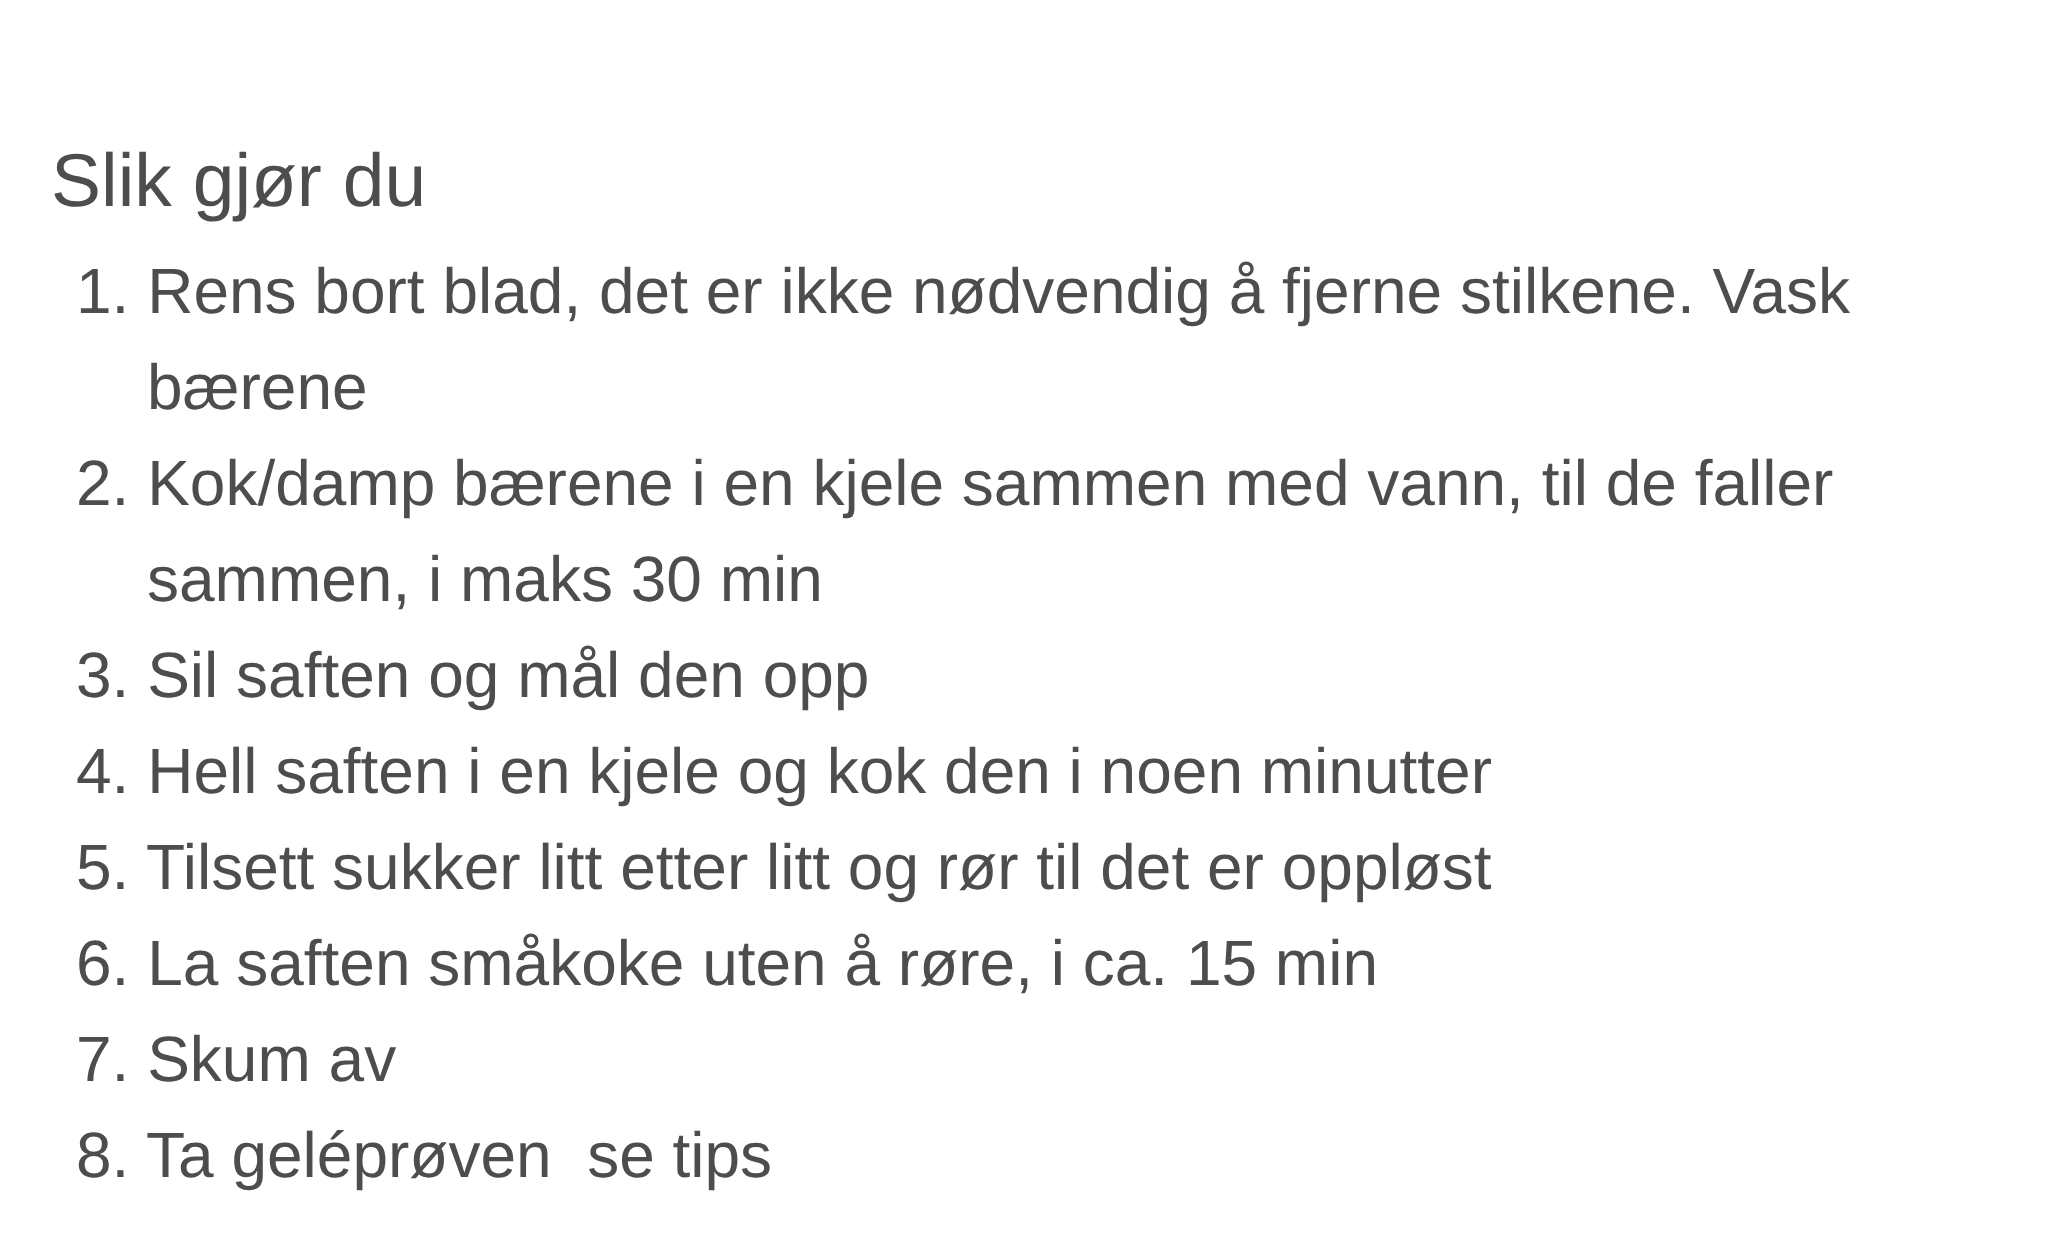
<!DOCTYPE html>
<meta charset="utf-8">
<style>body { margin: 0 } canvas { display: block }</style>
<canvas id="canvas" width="2066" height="1251"></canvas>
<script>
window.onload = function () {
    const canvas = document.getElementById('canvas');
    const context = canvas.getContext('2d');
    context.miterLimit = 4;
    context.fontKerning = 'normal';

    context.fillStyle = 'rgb(255, 255, 255)';
    context.fillRect(0, 0, 2066, 1251);
    context.font = '75px Liberation Sans';
    context.fillStyle = 'rgb(77, 77, 79)';
    context.fillText('Slik gjør du', 51, 206);
    context.font = '64px Liberation Sans';
    context.fillText('1. Rens bort blad, det er ikke nødvendig å fjerne stilkene. Vask', 76, 313);
    context.fillText('bærene', 147, 409);
    context.fillText('2. Kok/damp bærene i en kjele sammen med vann, til de faller', 76, 505);
    context.fillText('sammen, i maks 30 min', 147, 601);
    context.fillText('3. Sil saften og mål den opp', 76, 697);
    context.fillText('4. Hell saften i en kjele og kok den i noen minutter', 76, 793);
    context.fillText('5. Tilsett sukker litt etter litt og rør til det er oppløst', 76, 889);
    context.fillText('6. La saften småkoke uten å røre, i ca. 15 min', 76, 985);
    context.fillText('7. Skum av', 76, 1081);
    context.fillText('8. Ta geléprøven  se tips', 76, 1177);
};
</script>
